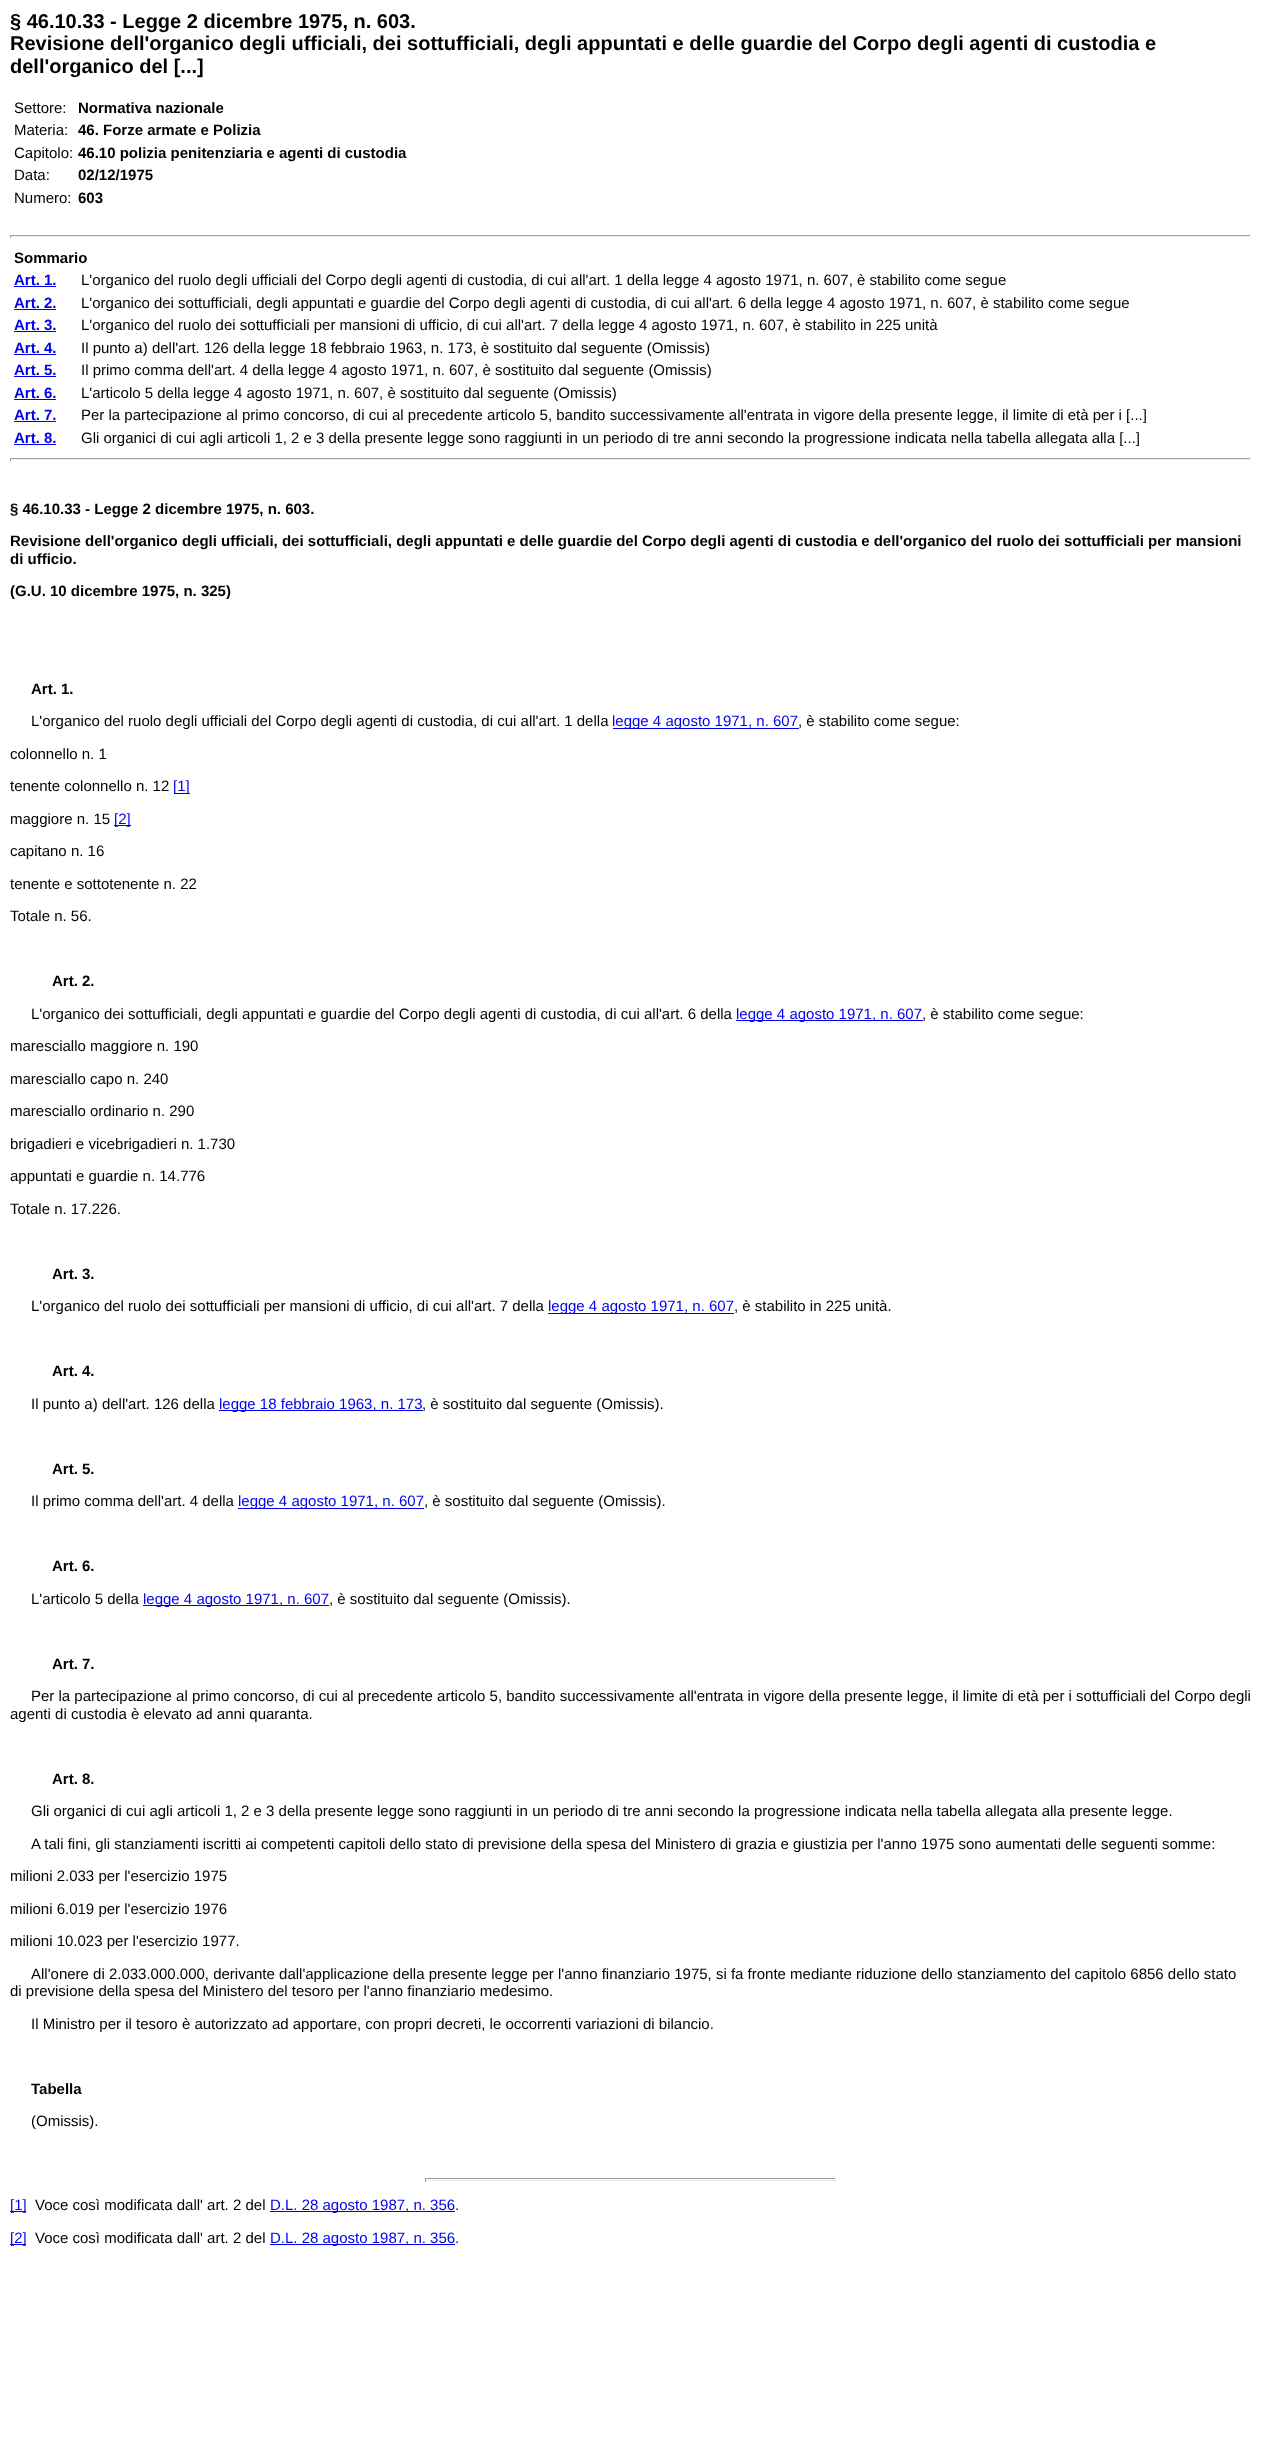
<!DOCTYPE html>
<meta charset="utf-8">
<style>body { margin: 0 } canvas { display: block }</style>
<canvas id="canvas" width="1261" height="2440"></canvas>
<script>
window.onload = function () {
    const canvas = document.getElementById('canvas');
    const context = canvas.getContext('2d');
    context.miterLimit = 4;
    context.fontKerning = 'normal';

    context.fillStyle = 'rgb(255, 255, 255)';
    context.fillRect(0, 0, 1261, 2440);
    context.fillStyle = 'rgb(159, 159, 159)';
    context.fillRect(10, 235, 1241, 1);
    context.fillStyle = 'rgb(238, 238, 238)';
    context.fillRect(1250, 235, 1, 3);
    context.fillRect(10, 236, 1241, 1);
    context.fillStyle = 'rgb(159, 159, 159)';
    context.fillRect(10, 235, 1, 3);
    context.fillStyle = 'rgb(0, 0, 238)';
    context.fillRect(14, 286, 42, 1);
    context.fillRect(14, 309, 42, 1);
    context.fillRect(14, 331, 42, 1);
    context.fillRect(14, 354, 42, 1);
    context.fillRect(14, 376, 42, 1);
    context.fillRect(14, 399, 42, 1);
    context.fillRect(14, 421, 42, 1);
    context.fillRect(14, 444, 42, 1);
    context.fillStyle = 'rgb(159, 159, 159)';
    context.fillRect(10, 458, 1241, 1);
    context.fillStyle = 'rgb(238, 238, 238)';
    context.fillRect(1250, 458, 1, 3);
    context.fillRect(10, 459, 1241, 1);
    context.fillStyle = 'rgb(159, 159, 159)';
    context.fillRect(10, 458, 1, 3);
    context.fillStyle = 'rgb(0, 0, 238)';
    context.fillRect(613, 728, 186, 1);
    context.fillRect(174, 793, 16, 1);
    context.fillRect(114, 825, 17, 1);
    context.fillRect(736, 1020, 187, 1);
    context.fillRect(548, 1313, 186, 1);
    context.fillRect(219, 1410, 204, 1);
    context.fillRect(238, 1508, 186, 1);
    context.fillRect(143, 1605, 186, 1);
    context.fillStyle = 'rgb(159, 159, 159)';
    context.fillRect(425, 2178, 411, 1);
    context.fillStyle = 'rgb(238, 238, 238)';
    context.fillRect(835, 2178, 1, 4);
    context.fillRect(425, 2180, 411, 1);
    context.fillStyle = 'rgb(159, 159, 159)';
    context.fillRect(425, 2178, 1, 4);
    context.fillStyle = 'rgb(0, 0, 238)';
    context.fillRect(10, 2211, 16, 1);
    context.fillRect(270, 2211, 185, 1);
    context.fillRect(10, 2244, 16, 1);
    context.fillRect(270, 2244, 185, 1);
    context.font = 'bold 20px Liberation Sans';
    context.fillStyle = 'rgb(0, 0, 0)';
    context.fillText('§ 46.10.33 - Legge 2 dicembre 1975, n. 603.', 10, 28);
    context.fillText('Revisione dell\'organico degli ufficiali, dei sottufficiali, degli appuntati e delle guardie del Corpo degli agenti di custodia e', 10, 50);
    context.fillText('dell\'organico del [...]', 10, 73);
    context.font = '15px Liberation Sans';
    context.fillText('Settore:', 14, 113);
    context.font = 'bold 15px Liberation Sans';
    context.fillText('Normativa nazionale', 78, 113);
    context.font = '15px Liberation Sans';
    context.fillText('Materia:', 14, 135);
    context.font = 'bold 15px Liberation Sans';
    context.fillText('46. Forze armate e Polizia', 78, 135);
    context.font = '15px Liberation Sans';
    context.fillText('Capitolo:', 14, 158);
    context.font = 'bold 15px Liberation Sans';
    context.fillText('46.10 polizia penitenziaria e agenti di custodia', 78, 158);
    context.font = '15px Liberation Sans';
    context.fillText('Data:', 14, 180);
    context.font = 'bold 15px Liberation Sans';
    context.fillText('02/12/1975', 78, 180);
    context.font = '15px Liberation Sans';
    context.fillText('Numero:', 14, 203);
    context.font = 'bold 15px Liberation Sans';
    context.fillText('603', 78, 203);
    context.fillText('Sommario', 14, 263);
    context.fillStyle = 'rgb(0, 0, 238)';
    context.fillText('Art. 1.', 14, 285);
    context.font = '15px Liberation Sans';
    context.fillStyle = 'rgb(0, 0, 0)';
    context.fillText('L\'organico del ruolo degli ufficiali del Corpo degli agenti di custodia, di cui all\'art. 1 della legge 4 agosto 1971, n. 607, è stabilito come segue', 81, 285);
    context.font = 'bold 15px Liberation Sans';
    context.fillStyle = 'rgb(0, 0, 238)';
    context.fillText('Art. 2.', 14, 308);
    context.font = '15px Liberation Sans';
    context.fillStyle = 'rgb(0, 0, 0)';
    context.fillText('L\'organico dei sottufficiali, degli appuntati e guardie del Corpo degli agenti di custodia, di cui all\'art. 6 della legge 4 agosto 1971, n. 607, è stabilito come segue', 81, 308);
    context.font = 'bold 15px Liberation Sans';
    context.fillStyle = 'rgb(0, 0, 238)';
    context.fillText('Art. 3.', 14, 330);
    context.font = '15px Liberation Sans';
    context.fillStyle = 'rgb(0, 0, 0)';
    context.fillText('L\'organico del ruolo dei sottufficiali per mansioni di ufficio, di cui all\'art. 7 della legge 4 agosto 1971, n. 607, è stabilito in 225 unità', 81, 330);
    context.font = 'bold 15px Liberation Sans';
    context.fillStyle = 'rgb(0, 0, 238)';
    context.fillText('Art. 4.', 14, 353);
    context.font = '15px Liberation Sans';
    context.fillStyle = 'rgb(0, 0, 0)';
    context.fillText('Il punto a) dell\'art. 126 della legge 18 febbraio 1963, n. 173, è sostituito dal seguente (Omissis)', 81, 353);
    context.font = 'bold 15px Liberation Sans';
    context.fillStyle = 'rgb(0, 0, 238)';
    context.fillText('Art. 5.', 14, 375);
    context.font = '15px Liberation Sans';
    context.fillStyle = 'rgb(0, 0, 0)';
    context.fillText('Il primo comma dell\'art. 4 della legge 4 agosto 1971, n. 607, è sostituito dal seguente (Omissis)', 81, 375);
    context.font = 'bold 15px Liberation Sans';
    context.fillStyle = 'rgb(0, 0, 238)';
    context.fillText('Art. 6.', 14, 398);
    context.font = '15px Liberation Sans';
    context.fillStyle = 'rgb(0, 0, 0)';
    context.fillText('L\'articolo 5 della legge 4 agosto 1971, n. 607, è sostituito dal seguente (Omissis)', 81, 398);
    context.font = 'bold 15px Liberation Sans';
    context.fillStyle = 'rgb(0, 0, 238)';
    context.fillText('Art. 7.', 14, 420);
    context.font = '15px Liberation Sans';
    context.fillStyle = 'rgb(0, 0, 0)';
    context.fillText('Per la partecipazione al primo concorso, di cui al precedente articolo 5, bandito successivamente all\'entrata in vigore della presente legge, il limite di età per i [...]', 81, 420);
    context.font = 'bold 15px Liberation Sans';
    context.fillStyle = 'rgb(0, 0, 238)';
    context.fillText('Art. 8.', 14, 443);
    context.font = '15px Liberation Sans';
    context.fillStyle = 'rgb(0, 0, 0)';
    context.fillText('Gli organici di cui agli articoli 1, 2 e 3 della presente legge sono raggiunti in un periodo di tre anni secondo la progressione indicata nella tabella allegata alla [...]', 81, 443);
    context.font = 'bold 15px Liberation Sans';
    context.fillText('§ 46.10.33 - Legge 2 dicembre 1975, n. 603.', 10, 514);
    context.fillText('Revisione dell\'organico degli ufficiali, dei sottufficiali, degli appuntati e delle guardie del Corpo degli agenti di custodia e dell\'organico del ruolo dei sottufficiali per mansioni', 10, 546);
    context.fillText('di ufficio.', 10, 564);
    context.fillText('(G.U. 10 dicembre 1975, n. 325)', 10, 596);
    context.fillText('Art. 1.', 31, 694);
    context.font = '15px Liberation Sans';
    context.fillText('L\'organico del ruolo degli ufficiali del Corpo degli agenti di custodia, di cui all\'art. 1 della', 31, 726);
    context.fillStyle = 'rgb(0, 0, 238)';
    context.fillText('legge 4 agosto 1971, n. 607', 612, 726);
    context.fillStyle = 'rgb(0, 0, 0)';
    context.fillText(', è stabilito come segue:', 798, 726);
    context.fillText('colonnello n. 1', 10, 759);
    context.fillText('tenente colonnello n. 12', 10, 791);
    context.fillStyle = 'rgb(0, 0, 238)';
    context.fillText('[1]', 173, 791);
    context.fillStyle = 'rgb(0, 0, 0)';
    context.fillText('maggiore n. 15', 10, 824);
    context.fillStyle = 'rgb(0, 0, 238)';
    context.fillText('[2]', 114, 824);
    context.fillStyle = 'rgb(0, 0, 0)';
    context.fillText('capitano n. 16', 10, 856);
    context.fillText('tenente e sottotenente n. 22', 10, 889);
    context.fillText('Totale n. 56.', 10, 921);
    context.font = 'bold 15px Liberation Sans';
    context.fillText('Art. 2.', 52, 986);
    context.font = '15px Liberation Sans';
    context.fillText('L\'organico dei sottufficiali, degli appuntati e guardie del Corpo degli agenti di custodia, di cui all\'art. 6 della', 31, 1019);
    context.fillStyle = 'rgb(0, 0, 238)';
    context.fillText('legge 4 agosto 1971, n. 607', 736, 1019);
    context.fillStyle = 'rgb(0, 0, 0)';
    context.fillText(', è stabilito come segue:', 922, 1019);
    context.fillText('maresciallo maggiore n. 190', 10, 1051);
    context.fillText('maresciallo capo n. 240', 10, 1084);
    context.fillText('maresciallo ordinario n. 290', 10, 1116);
    context.fillText('brigadieri e vicebrigadieri n. 1.730', 10, 1149);
    context.fillText('appuntati e guardie n. 14.776', 10, 1181);
    context.fillText('Totale n. 17.226.', 10, 1214);
    context.font = 'bold 15px Liberation Sans';
    context.fillText('Art. 3.', 52, 1279);
    context.font = '15px Liberation Sans';
    context.fillText('L\'organico del ruolo dei sottufficiali per mansioni di ufficio, di cui all\'art. 7 della', 31, 1311);
    context.fillStyle = 'rgb(0, 0, 238)';
    context.fillText('legge 4 agosto 1971, n. 607', 548, 1311);
    context.fillStyle = 'rgb(0, 0, 0)';
    context.fillText(', è stabilito in 225 unità.', 734, 1311);
    context.font = 'bold 15px Liberation Sans';
    context.fillText('Art. 4.', 52, 1376);
    context.font = '15px Liberation Sans';
    context.fillText('Il punto a) dell\'art. 126 della', 31, 1409);
    context.fillStyle = 'rgb(0, 0, 238)';
    context.fillText('legge 18 febbraio 1963, n. 173', 219, 1409);
    context.fillStyle = 'rgb(0, 0, 0)';
    context.fillText(', è sostituito dal seguente (Omissis).', 422, 1409);
    context.font = 'bold 15px Liberation Sans';
    context.fillText('Art. 5.', 52, 1474);
    context.font = '15px Liberation Sans';
    context.fillText('Il primo comma dell\'art. 4 della', 31, 1506);
    context.fillStyle = 'rgb(0, 0, 238)';
    context.fillText('legge 4 agosto 1971, n. 607', 238, 1506);
    context.fillStyle = 'rgb(0, 0, 0)';
    context.fillText(', è sostituito dal seguente (Omissis).', 424, 1506);
    context.font = 'bold 15px Liberation Sans';
    context.fillText('Art. 6.', 52, 1571);
    context.font = '15px Liberation Sans';
    context.fillText('L\'articolo 5 della', 31, 1604);
    context.fillStyle = 'rgb(0, 0, 238)';
    context.fillText('legge 4 agosto 1971, n. 607', 143, 1604);
    context.fillStyle = 'rgb(0, 0, 0)';
    context.fillText(', è sostituito dal seguente (Omissis).', 329, 1604);
    context.font = 'bold 15px Liberation Sans';
    context.fillText('Art. 7.', 52, 1669);
    context.font = '15px Liberation Sans';
    context.fillText('Per la partecipazione al primo concorso, di cui al precedente articolo 5, bandito successivamente all\'entrata in vigore della presente legge, il limite di età per i sottufficiali del Corpo degli', 31, 1701);
    context.fillText('agenti di custodia è elevato ad anni quaranta.', 10, 1719);
    context.font = 'bold 15px Liberation Sans';
    context.fillText('Art. 8.', 52, 1784);
    context.font = '15px Liberation Sans';
    context.fillText('Gli organici di cui agli articoli 1, 2 e 3 della presente legge sono raggiunti in un periodo di tre anni secondo la progressione indicata nella tabella allegata alla presente legge.', 31, 1816);
    context.fillText('A tali fini, gli stanziamenti iscritti ai competenti capitoli dello stato di previsione della spesa del Ministero di grazia e giustizia per l\'anno 1975 sono aumentati delle seguenti somme:', 31, 1849);
    context.fillText('milioni 2.033 per l\'esercizio 1975', 10, 1881);
    context.fillText('milioni 6.019 per l\'esercizio 1976', 10, 1914);
    context.fillText('milioni 10.023 per l\'esercizio 1977.', 10, 1946);
    context.fillText('All\'onere di 2.033.000.000, derivante dall\'applicazione della presente legge per l\'anno finanziario 1975, si fa fronte mediante riduzione dello stanziamento del capitolo 6856 dello stato', 31, 1979);
    context.fillText('di previsione della spesa del Ministero del tesoro per l\'anno finanziario medesimo.', 10, 1996);
    context.fillText('Il Ministro per il tesoro è autorizzato ad apportare, con propri decreti, le occorrenti variazioni di bilancio.', 31, 2029);
    context.font = 'bold 15px Liberation Sans';
    context.fillText('Tabella', 31, 2094);
    context.font = '15px Liberation Sans';
    context.fillText('(Omissis).', 31, 2126);
    context.fillStyle = 'rgb(0, 0, 238)';
    context.fillText('[1]', 10, 2210);
    context.fillStyle = 'rgb(0, 0, 0)';
    context.fillText('Voce così modificata dall\' art. 2 del', 35, 2210);
    context.fillStyle = 'rgb(0, 0, 238)';
    context.fillText('D.L. 28 agosto 1987, n. 356', 270, 2210);
    context.fillStyle = 'rgb(0, 0, 0)';
    context.fillText('.', 455, 2210);
    context.fillStyle = 'rgb(0, 0, 238)';
    context.fillText('[2]', 10, 2243);
    context.fillStyle = 'rgb(0, 0, 0)';
    context.fillText('Voce così modificata dall\' art. 2 del', 35, 2243);
    context.fillStyle = 'rgb(0, 0, 238)';
    context.fillText('D.L. 28 agosto 1987, n. 356', 270, 2243);
    context.fillStyle = 'rgb(0, 0, 0)';
    context.fillText('.', 455, 2243);
};
</script>
